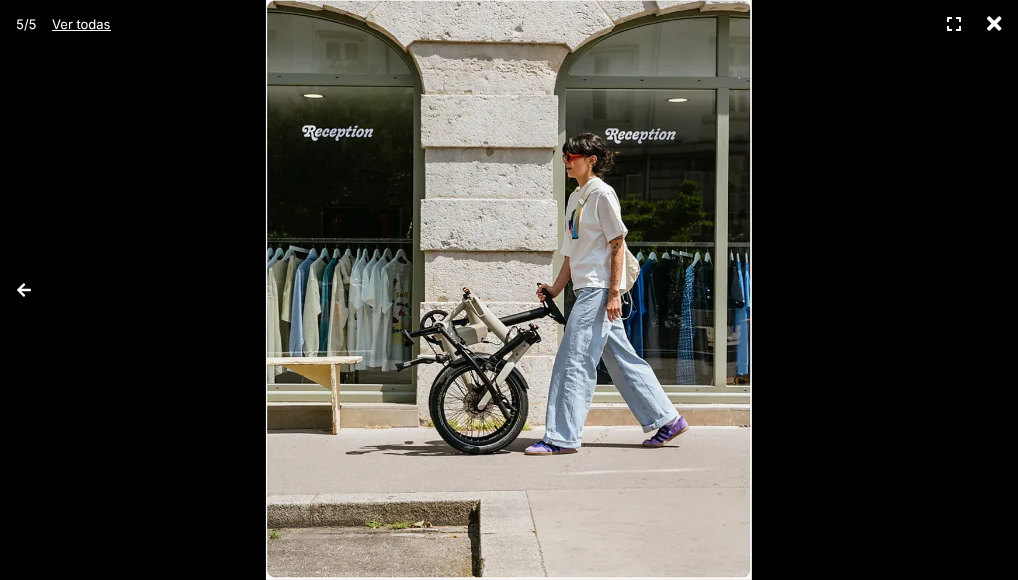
<!DOCTYPE html>
<meta charset="utf-8">
<style>body { margin: 0 } canvas { display: block }</style>
<canvas id="canvas" width="1018" height="580"></canvas>
<img id="img1" src="images/1.png" hidden>
<img id="img2" src="images/2.png" hidden>
<img id="img3" src="images/3.png" hidden>
<img id="img4" src="images/4.png" hidden>
<script>
window.onload = function () {
    const canvas = document.getElementById('canvas');
    const context = canvas.getContext('2d');
    context.miterLimit = 4;
    context.fontKerning = 'normal';

    context.fillStyle = 'rgb(0, 0, 0)';
    context.fillRect(0, 0, 1018, 580);
    context.drawImage(document.getElementById('img1'), 17, 283, 14, 14);
    context.drawImage(document.getElementById('img2'), 265, 0, 487, 580);
    context.fillStyle = 'rgb(255, 255, 255)';
    context.fillRect(52, 30, 59, 1);
    context.drawImage(document.getElementById('img3'), 947, 17, 14, 14);
    context.drawImage(document.getElementById('img4'), 987, 16, 15, 15);
    context.font = '13px Inter';
    context.fillText('5/5', 16, 29);
    context.fillText('Ver todas', 52, 29);
};
</script>
